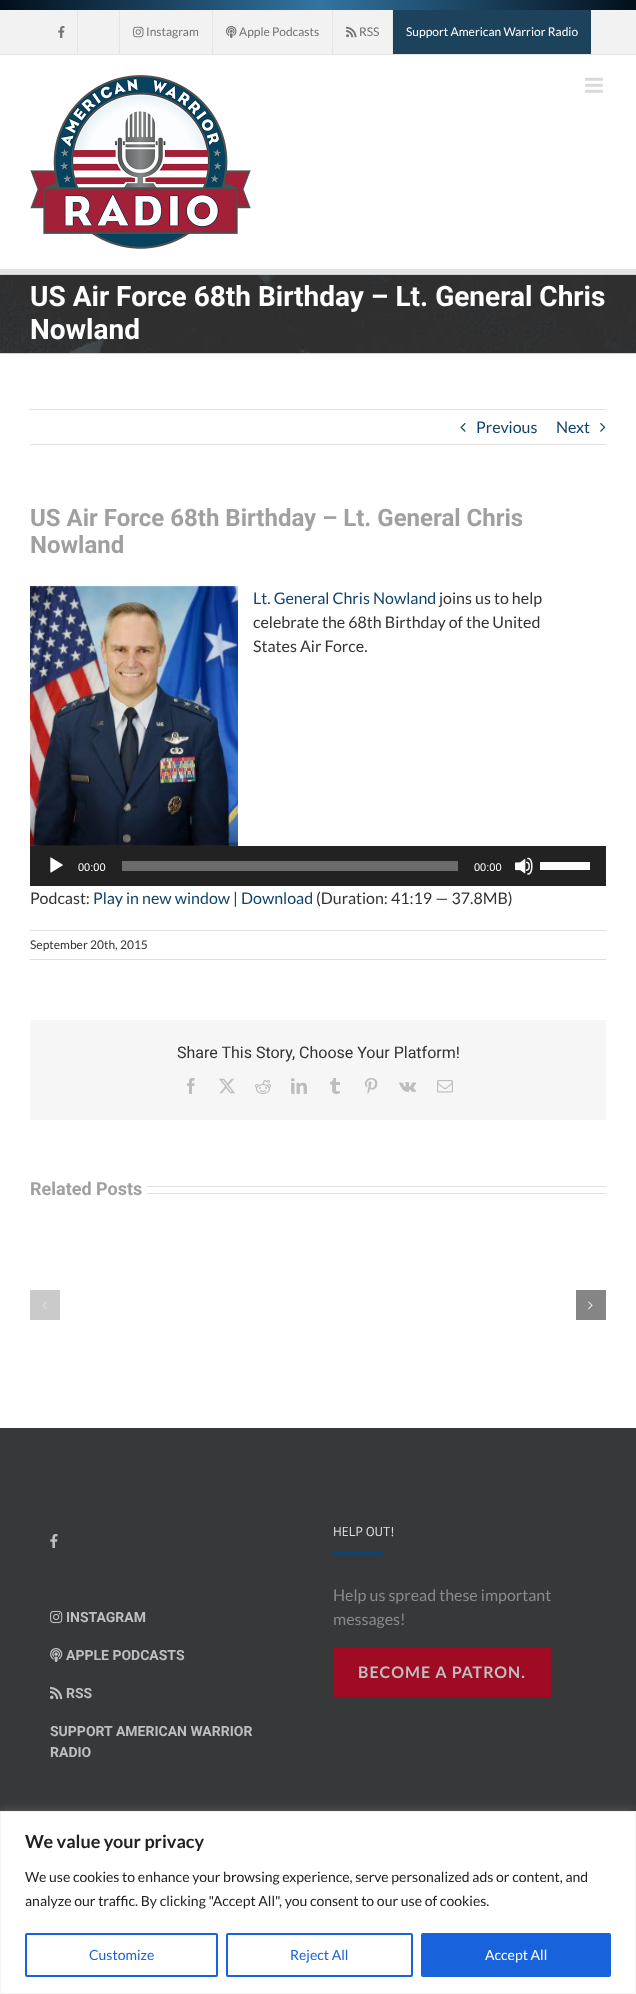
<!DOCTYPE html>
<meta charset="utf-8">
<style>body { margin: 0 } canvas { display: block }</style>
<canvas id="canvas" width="636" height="1994"></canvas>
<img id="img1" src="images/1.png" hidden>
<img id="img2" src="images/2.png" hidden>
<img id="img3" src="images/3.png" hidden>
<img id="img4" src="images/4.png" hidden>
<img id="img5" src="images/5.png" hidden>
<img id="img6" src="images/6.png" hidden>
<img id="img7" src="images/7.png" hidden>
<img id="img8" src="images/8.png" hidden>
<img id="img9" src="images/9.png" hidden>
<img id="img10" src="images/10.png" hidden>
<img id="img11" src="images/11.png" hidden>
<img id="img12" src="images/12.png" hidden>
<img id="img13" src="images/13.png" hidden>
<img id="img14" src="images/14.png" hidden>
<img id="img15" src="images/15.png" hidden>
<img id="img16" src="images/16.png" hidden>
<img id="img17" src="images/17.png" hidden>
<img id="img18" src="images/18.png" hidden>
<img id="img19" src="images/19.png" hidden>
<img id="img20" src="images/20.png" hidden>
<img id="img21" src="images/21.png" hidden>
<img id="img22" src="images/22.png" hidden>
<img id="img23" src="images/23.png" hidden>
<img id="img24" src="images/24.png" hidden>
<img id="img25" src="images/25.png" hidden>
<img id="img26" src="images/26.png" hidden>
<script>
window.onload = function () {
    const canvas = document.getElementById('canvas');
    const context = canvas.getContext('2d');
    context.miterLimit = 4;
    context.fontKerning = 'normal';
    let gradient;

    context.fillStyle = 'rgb(255, 255, 255)';
    context.fillRect(0, 0, 636, 1994);
    gradient = context.createLinearGradient(0, 5, 636, 5);
    gradient.addColorStop(0, 'rgb(2, 15, 26)');
    gradient.addColorStop(0.5, 'rgb(51, 116, 162)');
    gradient.addColorStop(1, 'rgb(2, 15, 26)');
    context.fillStyle = gradient;
    context.fillRect(0, 0, 636, 10);
    context.fillStyle = 'rgb(242, 242, 242)';
    context.fillRect(0, 10, 636, 44);
    context.fillStyle = 'rgb(229, 229, 229)';
    context.fillRect(0, 54, 636, 1);
    context.drawImage(document.getElementById('img1'), 58, 26, 7, 12);
    context.fillRect(77, 10, 1, 44);
    context.fillRect(119, 10, 1, 44);
    context.drawImage(document.getElementById('img2'), 133, 26, 11, 12);
    context.fillRect(212, 10, 1, 44);
    context.drawImage(document.getElementById('img3'), 226, 26, 11, 12);
    context.fillRect(332, 10, 1, 44);
    context.drawImage(document.getElementById('img4'), 346, 26, 11, 12);
    context.fillStyle = 'rgb(29, 66, 92)';
    context.fillRect(393, 10, 198, 44);
    context.fillStyle = 'rgb(229, 229, 229)';
    context.fillRect(392, 10, 1, 44);
    context.fillRect(0, 269, 636, 5);
    context.drawImage(document.getElementById('img5'), 30, 75, 221, 174);
    context.drawImage(document.getElementById('img6'), 585, 77, 18, 16);
    context.drawImage(document.getElementById('img7'), 0, 275, 636, 78);
    context.fillStyle = 'rgb(210, 211, 212)';
    context.fillRect(0, 274, 636, 1);
    context.fillRect(0, 353, 636, 1);
    context.fillStyle = 'rgb(224, 222, 222)';
    context.fillRect(30, 409, 576, 1);
    context.fillRect(30, 444, 576, 1);
    context.drawImage(document.getElementById('img8'), 460, 423, 6, 9);
    context.drawImage(document.getElementById('img9'), 600, 423, 6, 9);
    context.drawImage(document.getElementById('img10'), 30, 585, 208, 261);
    context.fillStyle = 'rgb(34, 34, 34)';
    context.fillRect(30, 846, 576, 40);
    context.drawImage(document.getElementById('img11'), 50, 857, 13, 16);
    context.fillStyle = 'rgb(107, 107, 107)';
    context.fillRect(122, 861, 336, 10);
    context.drawImage(document.getElementById('img12'), 515, 857, 18, 18);
    context.fillStyle = 'rgb(255, 255, 255)';
    context.fillRect(540, 862, 50, 8);
    context.fillStyle = 'rgb(224, 222, 222)';
    context.fillRect(30, 930, 576, 1);
    context.fillRect(30, 959, 576, 1);
    context.fillStyle = 'rgb(246, 246, 246)';
    context.fillRect(30, 1020, 576, 100);
    context.drawImage(document.getElementById('img13'), 187, 1078, 8, 16);
    context.drawImage(document.getElementById('img14'), 219, 1078, 16, 16);
    context.drawImage(document.getElementById('img15'), 255, 1080, 16, 14);
    context.drawImage(document.getElementById('img16'), 291, 1078, 16, 16);
    context.drawImage(document.getElementById('img17'), 330, 1078, 10, 16);
    context.drawImage(document.getElementById('img18'), 364, 1078, 14, 16);
    context.drawImage(document.getElementById('img19'), 399, 1082, 17, 10);
    context.drawImage(document.getElementById('img20'), 437, 1080, 16, 13);
    context.fillStyle = 'rgb(224, 222, 222)';
    context.fillRect(147, 1186, 459, 1);
    context.fillRect(147, 1193, 459, 1);
    context.fillStyle = 'rgb(202, 202, 202)';
    context.fillRect(30, 1290, 30, 30);
    context.drawImage(document.getElementById('img21'), 42, 1301, 5, 8);
    context.fillStyle = 'rgb(133, 133, 133)';
    context.fillRect(576, 1290, 30, 30);
    context.drawImage(document.getElementById('img22'), 588, 1301, 5, 9);
    context.fillStyle = 'rgb(54, 56, 57)';
    context.fillRect(0, 1428, 636, 383);
    context.drawImage(document.getElementById('img23'), 50, 1534, 8, 14);
    context.drawImage(document.getElementById('img24'), 50, 1610, 13, 14);
    context.drawImage(document.getElementById('img25'), 50, 1648, 13, 14);
    context.drawImage(document.getElementById('img26'), 50, 1686, 13, 14);
    context.fillStyle = 'rgb(18, 67, 107)';
    context.fillRect(333, 1552, 50, 3);
    context.fillStyle = 'rgb(158, 11, 35)';
    context.fillRect(333, 1647, 218, 50);
    context.fillStyle = 'rgba(172, 171, 171, 0.3)';
    context.filter = 'blur(5px)';
    context.beginPath();
    context.rect(0, 1810, 636, 183);
    context.fill();
    context.filter = 'none';
    context.fillStyle = 'rgb(255, 255, 255)';
    context.beginPath();
    context.rect(0.5, 1811.5, 635, 182);
    context.fill();
    context.strokeStyle = 'rgb(244, 244, 244)';
    context.stroke();
    context.beginPath();
    context.roundRect(26, 1934, 191, 42, 1);
    context.strokeStyle = 'rgb(24, 99, 220)';
    context.lineWidth = 2;
    context.stroke();
    context.beginPath();
    context.roundRect(227, 1934, 185, 42, 1);
    context.stroke();
    context.fillStyle = 'rgb(24, 99, 220)';
    context.beginPath();
    context.roundRect(422, 1934, 188, 42, 1);
    context.fill();
    context.stroke();
    context.font = '12px Lato';
    context.fillStyle = 'rgb(116, 116, 116)';
    context.fillText('Instagram', 146, 36);
    context.fillText('Apple Podcasts', 239, 36);
    context.fillText('RSS', 359, 36);
    context.fillStyle = 'rgb(255, 255, 255)';
    context.fillText('Support American Warrior Radio', 406, 36);
    context.font = 'bold 28px Roboto';
    context.fillText('US Air Force 68th Birthday – Lt. General Chris', 30, 306);
    context.fillText('Nowland', 30, 339);
    context.font = '16px Lato';
    context.fillStyle = 'rgb(18, 67, 107)';
    context.fillText('Previous', 476, 433);
    context.fillText('Next', 556, 433);
    context.font = 'bold 24px Roboto';
    context.fillStyle = 'rgb(160, 160, 160)';
    context.fillText('US Air Force 68th Birthday – Lt. General Chris', 30, 526);
    context.fillText('Nowland', 30, 553);
    context.font = '16px Lato';
    context.fillStyle = 'rgb(18, 67, 107)';
    context.fillText('Lt. General Chris Nowland', 253, 604);
    context.fillStyle = 'rgb(51, 51, 51)';
    context.fillText('joins us to help', 439, 604);
    context.fillText('celebrate the 68th Birthday of the United', 253, 628);
    context.fillText('States Air Force.', 253, 652);
    context.font = '11px Liberation Sans';
    context.fillStyle = 'rgb(255, 255, 255)';
    context.fillText('00:00', 78, 871);
    context.fillText('00:00', 474, 871);
    context.font = '16px Lato';
    context.fillStyle = 'rgb(51, 51, 51)';
    context.fillText('Podcast:', 30, 904);
    context.fillStyle = 'rgb(18, 67, 107)';
    context.fillText('Play in new window', 93, 904);
    context.fillStyle = 'rgb(51, 51, 51)';
    context.fillText('|', 233, 904);
    context.fillStyle = 'rgb(18, 67, 107)';
    context.fillText('Download', 241, 904);
    context.fillStyle = 'rgb(51, 51, 51)';
    context.fillText('(Duration: 41:19 — 37.8MB)', 316, 904);
    context.font = '12px Lato';
    context.fillText('September 20th, 2015', 30, 949);
    context.font = '16px Roboto';
    context.fillText('Share This Story, Choose Your Platform!', 177, 1058);
    context.font = 'bold 18px Roboto';
    context.fillStyle = 'rgb(160, 160, 160)';
    context.fillText('Related Posts', 30, 1195);
    context.font = 'bold 14px Roboto';
    context.fillStyle = 'rgb(191, 191, 191)';
    context.fillText('INSTAGRAM', 66, 1622);
    context.fillText('APPLE PODCASTS', 66, 1660);
    context.fillText('RSS', 66, 1698);
    context.fillText('SUPPORT AMERICAN WARRIOR', 50, 1736);
    context.fillText('RADIO', 50, 1757);
    context.font = '13px PT Sans';
    context.fillStyle = 'rgb(221, 221, 221)';
    context.fillText('HELP OUT!', 333, 1536);
    context.font = '16px Lato';
    context.fillStyle = 'rgb(140, 137, 137)';
    context.fillText('Help us spread these important', 333, 1601);
    context.fillText('messages!', 333, 1625);
    context.letterSpacing = '1px';
    context.font = 'bold 16px Lato';
    context.fillStyle = 'rgb(191, 191, 191)';
    context.fillText('BECOME A PATRON.', 358, 1678);
    context.letterSpacing = '0px';
    context.font = 'bold 18px Lato';
    context.fillStyle = 'rgb(33, 33, 33)';
    context.fillText('We value your privacy', 25, 1848);
    context.font = '14px Lato';
    context.fillText('We use cookies to enhance your browsing experience, serve personalized ads or content, and', 25, 1882);
    context.fillText('analyze our traffic. By clicking "Accept All", you consent to our use of cookies.', 25, 1906);
    context.fillStyle = 'rgb(24, 99, 220)';
    context.fillText('Customize', 89, 1960);
    context.fillText('Reject All', 290, 1960);
    context.fillStyle = 'rgb(255, 255, 255)';
    context.fillText('Accept All', 485, 1960);
};
</script>
